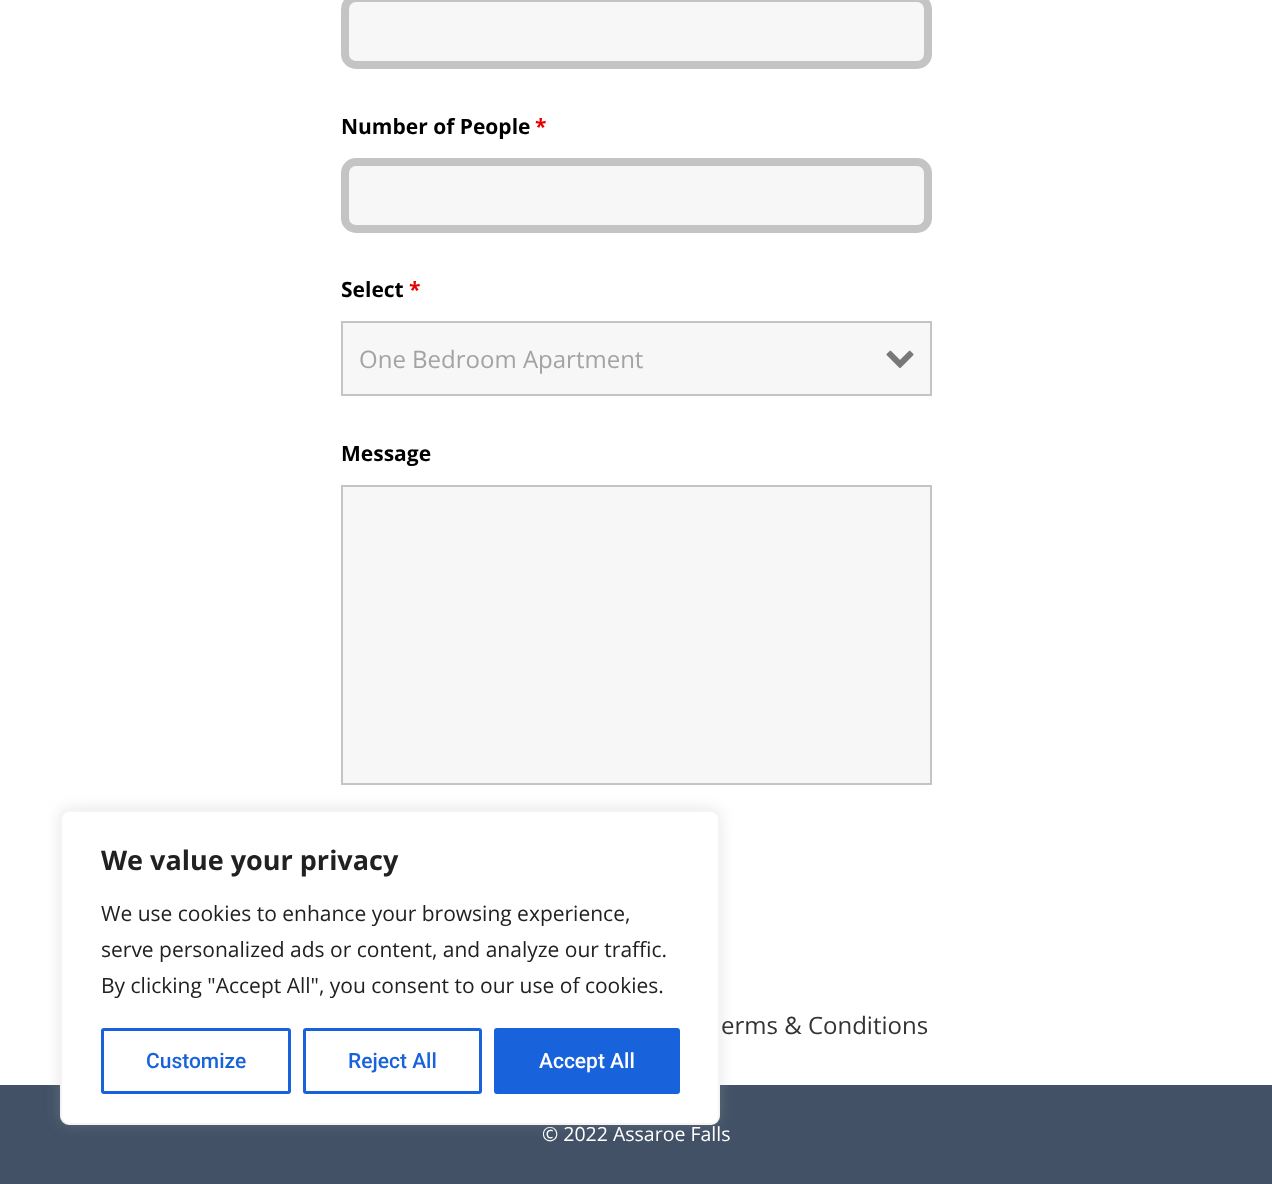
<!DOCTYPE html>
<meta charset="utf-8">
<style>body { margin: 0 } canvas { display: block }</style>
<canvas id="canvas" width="1272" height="1184"></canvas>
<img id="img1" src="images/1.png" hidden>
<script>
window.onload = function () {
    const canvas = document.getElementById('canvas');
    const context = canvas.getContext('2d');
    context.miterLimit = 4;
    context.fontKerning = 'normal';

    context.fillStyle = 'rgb(255, 255, 255)';
    context.fillRect(0, 0, 1272, 1184);
    context.fillStyle = 'rgb(247, 247, 247)';
    context.beginPath();
    context.roundRect(345, -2, 583, 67, 11);
    context.fill();
    context.strokeStyle = 'rgb(196, 196, 196)';
    context.lineWidth = 8;
    context.stroke();
    context.beginPath();
    context.roundRect(345, 162, 583, 67, 11);
    context.fill();
    context.stroke();
    context.beginPath();
    context.rect(342, 322, 589, 73);
    context.fill();
    context.lineWidth = 2;
    context.stroke();
    context.drawImage(document.getElementById('img1'), 886, 350, 28, 18);
    context.beginPath();
    context.rect(342, 486, 589, 298);
    context.fill();
    context.stroke();
    context.fillStyle = 'rgb(66, 81, 102)';
    context.fillRect(0, 1085, 1272, 99);
    context.fillStyle = 'rgba(172, 171, 171, 0.3)';
    context.filter = 'blur(7.5px)';
    context.beginPath();
    context.roundRect(60, 809, 660, 315, 9);
    context.fill();
    context.filter = 'none';
    context.fillStyle = 'rgb(255, 255, 255)';
    context.beginPath();
    context.roundRect(61, 811, 658, 313, 8);
    context.fill();
    context.strokeStyle = 'rgb(244, 244, 244)';
    context.stroke();
    context.beginPath();
    context.roundRect(102.5, 1029.5, 187, 63, 1.5);
    context.strokeStyle = 'rgb(24, 99, 220)';
    context.lineWidth = 3;
    context.stroke();
    context.beginPath();
    context.roundRect(304.5, 1029.5, 176, 63, 1.5);
    context.stroke();
    context.fillStyle = 'rgb(24, 99, 220)';
    context.beginPath();
    context.roundRect(495.5, 1029.5, 183, 63, 1.5);
    context.fill();
    context.stroke();
    context.font = 'bold 21px Open Sans';
    context.fillStyle = 'rgb(0, 0, 0)';
    context.fillText('Number of People', 341, 134);
    context.fillStyle = 'rgb(232, 0, 0)';
    context.fillText('*', 535, 134);
    context.fillStyle = 'rgb(0, 0, 0)';
    context.fillText('Select', 341, 297);
    context.fillStyle = 'rgb(232, 0, 0)';
    context.fillText('*', 409, 297);
    context.font = '24px Open Sans';
    context.fillStyle = 'rgb(163, 163, 163)';
    context.fillText('One Bedroom Apartment', 359, 368);
    context.font = 'bold 21px Open Sans';
    context.fillStyle = 'rgb(0, 0, 0)';
    context.fillText('Message', 341, 461);
    context.font = '24px Open Sans';
    context.fillStyle = 'rgb(51, 51, 51)';
    context.fillText('erms & Conditions', 721, 1034);
    context.font = '19.5px Open Sans';
    context.fillStyle = 'rgb(255, 255, 255)';
    context.fillText('© 2022 Assaroe Falls', 542, 1141);
    context.font = 'bold 27px Open Sans';
    context.fillStyle = 'rgb(33, 33, 33)';
    context.fillText('We value your privacy', 101, 870);
    context.font = '21px Open Sans';
    context.fillText('We use cookies to enhance your browsing experience,', 101, 921);
    context.fillText('serve personalized ads or content, and analyze our traffic.', 101, 957);
    context.fillText('By clicking "Accept All", you consent to our use of cookies.', 101, 993);
    context.font = '500 21px Roboto';
    context.fillStyle = 'rgb(24, 99, 220)';
    context.fillText('Customize', 146, 1068);
    context.fillText('Reject All', 348, 1068);
    context.fillStyle = 'rgb(255, 255, 255)';
    context.fillText('Accept All', 539, 1068);
};
</script>
